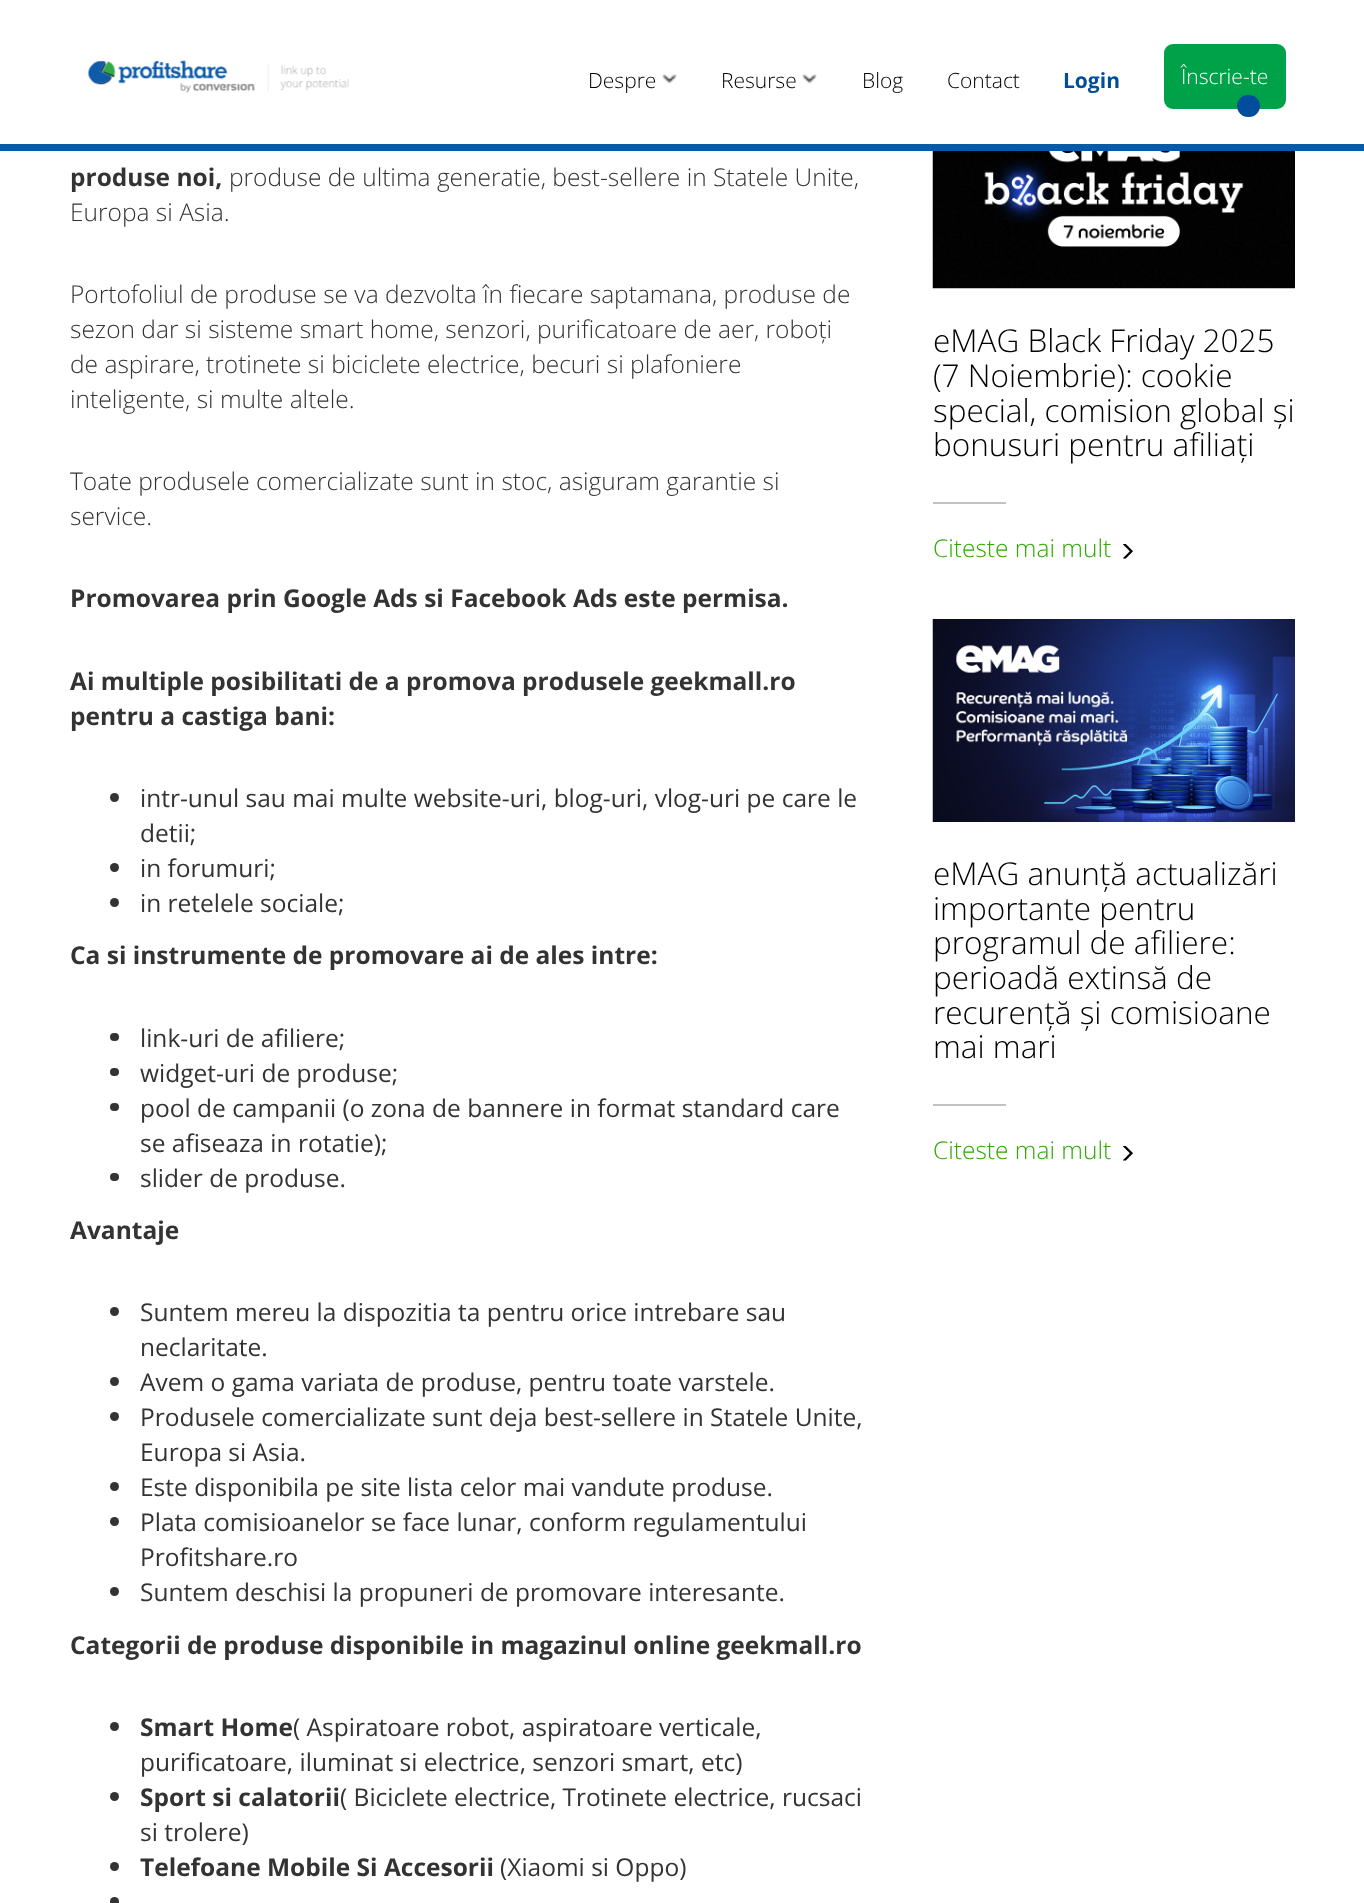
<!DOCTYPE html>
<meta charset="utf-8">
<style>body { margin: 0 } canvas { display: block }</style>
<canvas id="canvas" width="1364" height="1903"></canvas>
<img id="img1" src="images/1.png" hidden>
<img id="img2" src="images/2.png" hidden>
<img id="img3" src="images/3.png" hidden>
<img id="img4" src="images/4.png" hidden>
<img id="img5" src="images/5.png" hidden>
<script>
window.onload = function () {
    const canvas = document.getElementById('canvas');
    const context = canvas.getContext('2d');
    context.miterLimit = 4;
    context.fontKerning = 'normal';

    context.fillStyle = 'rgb(255, 255, 255)';
    context.fillRect(0, 0, 1364, 1903);
    context.fillStyle = 'rgb(5, 90, 170)';
    context.fillRect(0, 144, 1364, 7);
    context.drawImage(document.getElementById('img1'), 88, 60, 261, 33);
    context.drawImage(document.getElementById('img2'), 662, 74, 15, 10);
    context.drawImage(document.getElementById('img2'), 802, 74, 15, 10);
    context.fillStyle = 'rgb(0, 162, 73)';
    context.beginPath();
    context.roundRect(1164, 44, 122, 65, 9);
    context.fill();
    context.fillStyle = 'rgb(0, 77, 155)';
    context.beginPath();
    context.roundRect(1237, 95, 23, 22, 11);
    context.fill();
    context.fillStyle = 'rgb(51, 51, 51)';
    context.beginPath();
    context.arc(114.5, 797.5, 4.5, 0, 2 * Math.PI);
    context.fill();
    context.beginPath();
    context.arc(114.5, 867.5, 4.5, 0, 2 * Math.PI);
    context.fill();
    context.beginPath();
    context.arc(114.5, 902.5, 4.5, 0, 2 * Math.PI);
    context.fill();
    context.beginPath();
    context.roundRect(110, 1033, 9, 8, 4);
    context.fill();
    context.beginPath();
    context.roundRect(110, 1068, 9, 8, 4);
    context.fill();
    context.beginPath();
    context.roundRect(110, 1103, 9, 8, 4);
    context.fill();
    context.beginPath();
    context.roundRect(110, 1173, 9, 8, 4);
    context.fill();
    context.beginPath();
    context.arc(114.5, 1311.5, 4.5, 0, 2 * Math.PI);
    context.fill();
    context.beginPath();
    context.arc(114.5, 1381.5, 4.5, 0, 2 * Math.PI);
    context.fill();
    context.beginPath();
    context.arc(114.5, 1416.5, 4.5, 0, 2 * Math.PI);
    context.fill();
    context.beginPath();
    context.arc(114.5, 1486.5, 4.5, 0, 2 * Math.PI);
    context.fill();
    context.beginPath();
    context.arc(114.5, 1521.5, 4.5, 0, 2 * Math.PI);
    context.fill();
    context.beginPath();
    context.arc(114.5, 1591.5, 4.5, 0, 2 * Math.PI);
    context.fill();
    context.beginPath();
    context.arc(114.5, 1726.5, 4.5, 0, 2 * Math.PI);
    context.fill();
    context.beginPath();
    context.arc(114.5, 1796.5, 4.5, 0, 2 * Math.PI);
    context.fill();
    context.beginPath();
    context.arc(114.5, 1866.5, 4.5, 0, 2 * Math.PI);
    context.fill();
    context.beginPath();
    context.arc(114.5, 1901.5, 4.5, 0, 2 * Math.PI);
    context.fill();
    context.drawImage(document.getElementById('img3'), 932, 151, 363, 138);
    context.fillStyle = 'rgb(194, 194, 194)';
    context.fillRect(933, 502, 73, 2);
    context.drawImage(document.getElementById('img4'), 1123, 544, 10, 15);
    context.drawImage(document.getElementById('img5'), 932, 619, 363, 203);
    context.fillRect(933, 1104, 73, 2);
    context.drawImage(document.getElementById('img4'), 1123, 1146, 10, 15);
    context.font = '300 21px Open Sans';
    context.fillStyle = 'rgb(0, 0, 0)';
    context.fillText('Despre', 588, 88);
    context.fillText('Resurse', 721, 88);
    context.fillText('Blog', 862, 88);
    context.fillText('Contact', 947, 88);
    context.font = 'bold 21px Open Sans';
    context.fillStyle = 'rgb(0, 77, 155)';
    context.fillText('Login', 1063, 88);
    context.font = '300 21px Open Sans';
    context.fillStyle = 'rgb(255, 255, 255)';
    context.fillText('Înscrie-te', 1181, 84);
    context.font = 'bold 24.5px Open Sans';
    context.fillStyle = 'rgb(51, 51, 51)';
    context.fillText('produse noi,', 70, 186);
    context.font = '300 24.5px Open Sans';
    context.fillText('produse de ultima generatie, best-sellere in Statele Unite,', 229, 186);
    context.fillText('Europa si Asia.', 70, 221);
    context.fillText('Portofoliul de produse se va dezvolta în fiecare saptamana, produse de', 70, 303);
    context.fillText('sezon dar si sisteme smart home, senzori, purificatoare de aer, roboți', 70, 338);
    context.fillText('de aspirare, trotinete si biciclete electrice, becuri si plafoniere', 70, 373);
    context.fillText('inteligente, si multe altele.', 70, 408);
    context.fillText('Toate produsele comercializate sunt in stoc, asiguram garantie si', 70, 490);
    context.fillText('service.', 70, 525);
    context.font = 'bold 24.5px Open Sans';
    context.fillText('Promovarea prin Google Ads si Facebook Ads este permisa.', 70, 607);
    context.fillText('Ai multiple posibilitati de a promova produsele geekmall.ro', 70, 690);
    context.fillText('pentru a castiga bani:', 70, 725);
    context.font = '24.5px Open Sans';
    context.fillText('intr-unul sau mai multe website-uri, blog-uri, vlog-uri pe care le', 140, 807);
    context.fillText('detii;', 140, 842);
    context.fillText('in forumuri;', 140, 877);
    context.fillText('in retelele sociale;', 140, 912);
    context.font = 'bold 24.5px Open Sans';
    context.fillText('Ca si instrumente de promovare ai de ales intre:', 70, 964);
    context.font = '24.5px Open Sans';
    context.fillText('link-uri de afiliere;', 140, 1047);
    context.fillText('widget-uri de produse;', 140, 1082);
    context.fillText('pool de campanii (o zona de bannere in format standard care', 140, 1117);
    context.fillText('se afiseaza in rotatie);', 140, 1152);
    context.fillText('slider de produse.', 140, 1187);
    context.font = 'bold 24.5px Open Sans';
    context.fillText('Avantaje', 70, 1239);
    context.font = '24.5px Open Sans';
    context.fillText('Suntem mereu la dispozitia ta pentru orice intrebare sau', 140, 1321);
    context.fillText('neclaritate.', 140, 1356);
    context.fillText('Avem o gama variata de produse, pentru toate varstele.', 140, 1391);
    context.fillText('Produsele comercializate sunt deja best-sellere in Statele Unite,', 140, 1426);
    context.fillText('Europa si Asia.', 140, 1461);
    context.fillText('Este disponibila pe site lista celor mai vandute produse.', 140, 1496);
    context.fillText('Plata comisioanelor se face lunar, conform regulamentului', 140, 1531);
    context.fillText('Profitshare.ro', 140, 1566);
    context.fillText('Suntem deschisi la propuneri de promovare interesante.', 140, 1601);
    context.font = 'bold 24.5px Open Sans';
    context.fillText('Categorii de produse disponibile in magazinul online geekmall.ro', 70, 1654);
    context.fillText('Smart Home', 140, 1736);
    context.font = '24.5px Open Sans';
    context.fillText('( Aspiratoare robot, aspiratoare verticale,', 293, 1736);
    context.fillText('purificatoare, iluminat si electrice, senzori smart, etc)', 140, 1771);
    context.font = 'bold 24.5px Open Sans';
    context.fillText('Sport si calatorii', 140, 1806);
    context.font = '24.5px Open Sans';
    context.fillText('( Biciclete electrice, Trotinete electrice, rucsaci', 340, 1806);
    context.fillText('si trolere)', 140, 1841);
    context.font = 'bold 24.5px Open Sans';
    context.fillText('Telefoane Mobile Si Accesorii', 140, 1876);
    context.font = '24.5px Open Sans';
    context.fillText('(Xiaomi si Oppo)', 500, 1876);
    context.font = '300 31.5px Open Sans';
    context.fillStyle = 'rgb(0, 0, 0)';
    context.fillText('eMAG Black Friday 2025', 933, 352);
    context.fillText('(7 Noiembrie): cookie', 933, 387);
    context.fillText('special, comision global și', 933, 422);
    context.fillText('bonusuri pentru afiliați', 933, 456);
    context.font = '300 24.5px Open Sans';
    context.fillStyle = 'rgb(46, 170, 2)';
    context.fillText('Citeste mai mult', 933, 557);
    context.font = '300 31.5px Open Sans';
    context.fillStyle = 'rgb(0, 0, 0)';
    context.fillText('eMAG anunță actualizări', 933, 885);
    context.fillText('importante pentru', 933, 920);
    context.fillText('programul de afiliere:', 933, 954);
    context.fillText('perioadă extinsă de', 933, 989);
    context.fillText('recurență și comisioane', 933, 1024);
    context.fillText('mai mari', 933, 1058);
    context.font = '300 24.5px Open Sans';
    context.fillStyle = 'rgb(46, 170, 2)';
    context.fillText('Citeste mai mult', 933, 1159);
};
</script>
